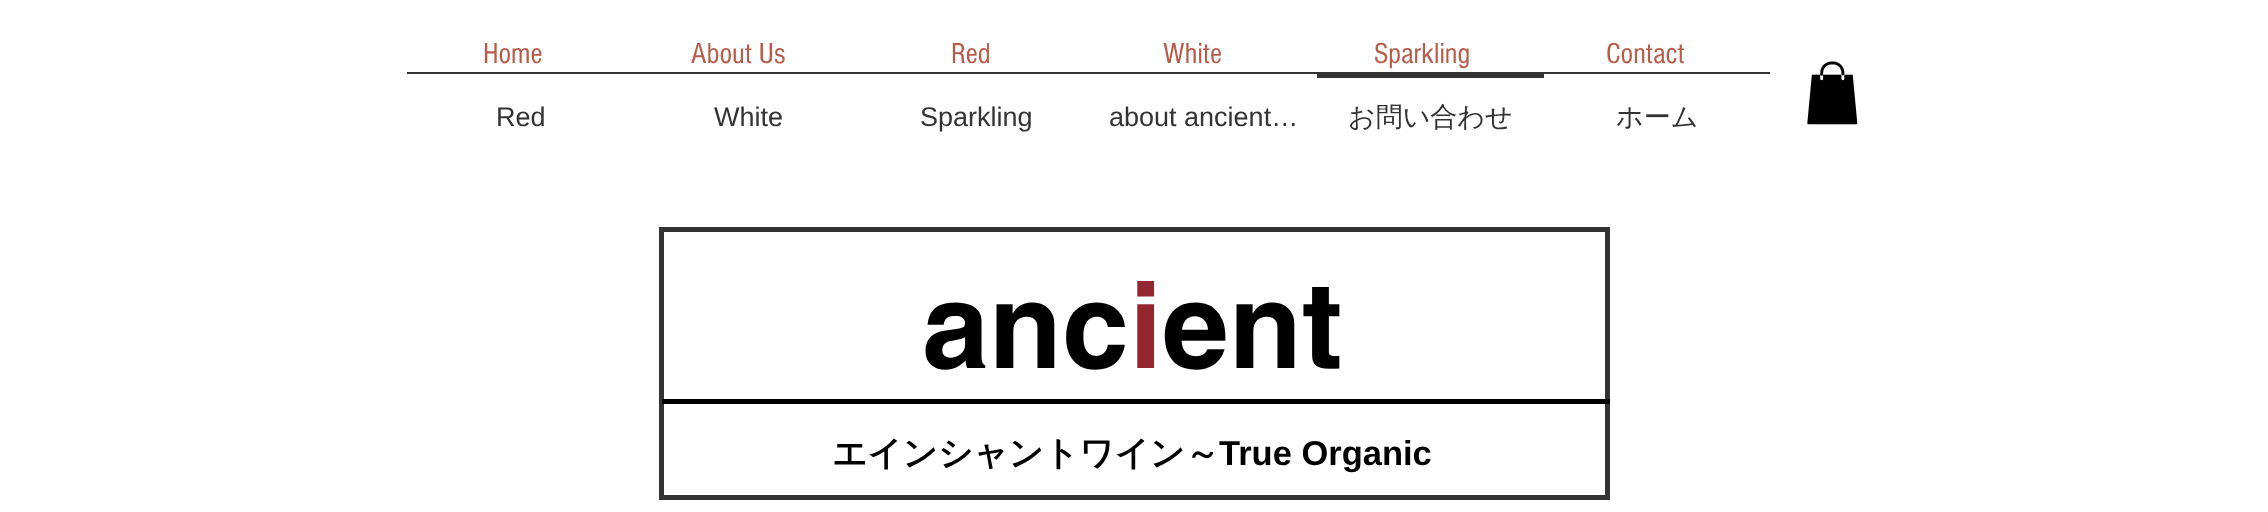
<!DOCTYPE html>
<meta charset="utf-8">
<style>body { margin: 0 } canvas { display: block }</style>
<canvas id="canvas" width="2268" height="512"></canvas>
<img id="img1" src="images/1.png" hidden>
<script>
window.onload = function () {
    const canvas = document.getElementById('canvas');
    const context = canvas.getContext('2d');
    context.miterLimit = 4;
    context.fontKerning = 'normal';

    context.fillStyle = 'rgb(255, 255, 255)';
    context.fillRect(0, 0, 2268, 512);
    context.fillStyle = 'rgb(51, 51, 51)';
    context.fillRect(407, 72, 910, 2);
    context.fillRect(1317, 72, 227, 6);
    context.fillRect(1544, 72, 226, 2);
    context.drawImage(document.getElementById('img1'), 1807, 61, 51, 64);
    context.strokeStyle = 'rgb(51, 51, 51)';
    context.lineWidth = 5;
    context.strokeRect(661.5, 229.5, 946, 268);
    context.fillStyle = 'rgb(0, 0, 0)';
    context.fillRect(662, 399, 948, 5);
    context.font = '30px "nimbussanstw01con"';
    context.fillStyle = 'rgb(185, 91, 73)';
    context.fillText('Home', 483, 63);
    context.fillText('About Us', 691, 63);
    context.fillText('Red', 951, 63);
    context.fillText('White', 1163, 63);
    context.fillText('Sparkling', 1374, 63);
    context.fillText('Contact', 1606, 63);
    context.font = '27px Liberation Sans';
    context.fillStyle = 'rgb(51, 51, 51)';
    context.fillText('Red', 496, 126);
    context.fillText('White', 714, 126);
    context.fillText('Sparkling', 920, 126);
    context.fillText('about ancient…', 1109, 126);
    context.font = '500 27px WenQuanYi Zen Hei';
    context.fillText('お問い合わせ', 1348, 126);
    context.fillText('ホーム', 1616, 126);
    context.font = 'bold 120px helvetica';
    context.fillStyle = 'rgb(0, 0, 0)';
    context.fillText('anc ent', 922, 368);
    context.fillStyle = 'rgb(148, 38, 48)';
    context.fillText('i', 1129, 368);
    context.font = 'bold 34.5px WenQuanYi Zen Hei';
    context.fillStyle = 'rgb(0, 0, 0)';
    context.fillText('エインシャントワイン～', 832, 465);
    context.font = 'bold 34.5px Liberation Sans';
    context.fillText('True Organic', 1219, 465);
};
</script>
